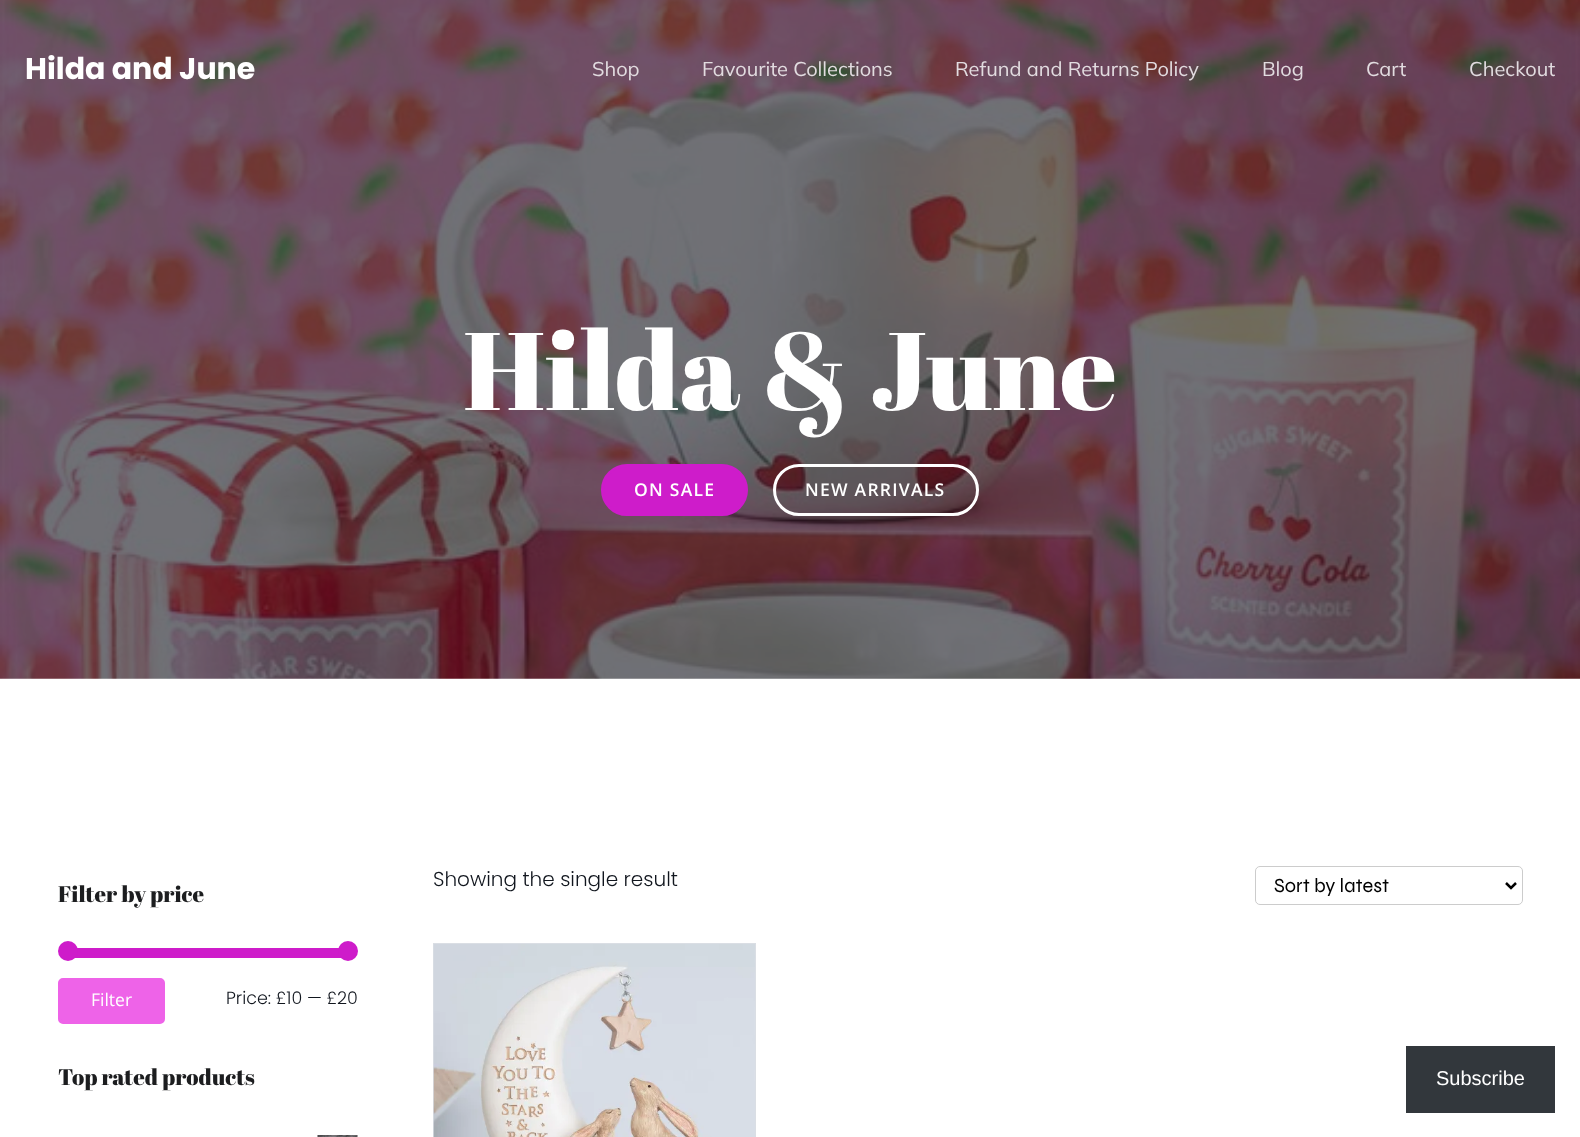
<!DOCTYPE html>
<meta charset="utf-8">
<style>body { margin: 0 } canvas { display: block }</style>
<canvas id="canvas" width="1580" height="1137"></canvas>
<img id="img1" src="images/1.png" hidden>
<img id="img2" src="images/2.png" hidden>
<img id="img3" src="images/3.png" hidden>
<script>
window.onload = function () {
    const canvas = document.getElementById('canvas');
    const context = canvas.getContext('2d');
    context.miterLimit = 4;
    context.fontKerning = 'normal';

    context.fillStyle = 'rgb(255, 255, 255)';
    context.fillRect(0, 0, 1580, 1137);
    context.drawImage(document.getElementById('img1'), 0, 0, 1580, 679);
    context.fillStyle = 'rgb(206, 28, 202)';
    context.beginPath();
    context.roundRect(602.5, 465.5, 144, 49, 24.5);
    context.fill();
    context.strokeStyle = 'rgb(206, 28, 202)';
    context.lineWidth = 3;
    context.stroke();
    context.beginPath();
    context.roundRect(774.5, 465.5, 203, 49, 24.5);
    context.strokeStyle = 'rgb(255, 255, 255)';
    context.stroke();
    context.fillRect(75, 948, 266, 10);
    context.beginPath();
    context.arc(68, 951, 10, 0, 2 * Math.PI);
    context.fill();
    context.beginPath();
    context.arc(348, 951, 10, 0, 2 * Math.PI);
    context.fill();
    context.fillStyle = 'rgb(238, 99, 232)';
    context.beginPath();
    context.roundRect(59.5, 979.5, 104, 43, 3.5);
    context.fill();
    context.strokeStyle = 'rgb(238, 99, 232)';
    context.stroke();
    context.drawImage(document.getElementById('img2'), 317, 1135, 41, 2);
    context.beginPath();
    context.roundRect(1255.5, 866.5, 267, 38, 4.5);
    context.strokeStyle = 'rgb(204, 204, 204)';
    context.lineWidth = 1;
    context.stroke();
    context.beginPath();
    context.moveTo(1506, 883);
    context.lineTo(1511, 888);
    context.lineTo(1516, 883);
    context.strokeStyle = 'rgb(0, 0, 0)';
    context.lineWidth = 2.5;
    context.stroke();
    context.strokeStyle = 'rgb(218, 222, 228)';
    context.lineWidth = 1;
    context.strokeRect(433.5, 943.5, 322, 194);
    context.drawImage(document.getElementById('img3'), 433, 944, 322, 193);
    context.fillStyle = 'rgb(50, 55, 60)';
    context.fillRect(1406, 1046, 149, 67);
    context.font = 'bold 30px Poppins';
    context.fillStyle = 'rgb(255, 255, 255)';
    context.fillText('Hilda and June', 25, 79);
    context.font = '20px Mulish';
    context.fillStyle = 'rgb(226, 220, 224)';
    context.fillText('Shop', 592, 76);
    context.fillText('Favourite Collections', 702, 76);
    context.fillText('Refund and Returns Policy', 955, 76);
    context.fillText('Blog', 1262, 76);
    context.fillText('Cart', 1366, 76);
    context.fillText('Checkout', 1469, 76);
    context.font = '110px Abril Fatface';
    context.fillStyle = 'rgb(255, 255, 255)';
    context.fillText('Hilda & June', 463, 410);
    context.letterSpacing = '1.25px';
    context.font = '600 17.5px Open Sans';
    context.fillText('ON SALE', 634, 496);
    context.fillText('NEW ARRIVALS', 805, 496);
    context.letterSpacing = '0px';
    context.font = '22.5px Abril Fatface';
    context.fillStyle = 'rgb(28, 29, 31)';
    context.fillText('Filter by price', 58, 902);
    context.font = '17.5px Open Sans';
    context.fillStyle = 'rgb(255, 255, 255)';
    context.fillText('Filter', 91, 1006);
    context.font = '300 17.5px Poppins';
    context.fillStyle = 'rgb(17, 22, 30)';
    context.fillText('Price: £10 — £20', 226, 1004);
    context.font = '22.5px Abril Fatface';
    context.fillStyle = 'rgb(28, 29, 31)';
    context.fillText('Top rated products', 58, 1085);
    context.font = '300 20px Poppins';
    context.fillStyle = 'rgb(17, 22, 30)';
    context.fillText('Showing the single result', 433, 886);
    context.font = '20px Syne';
    context.fillStyle = 'rgb(0, 0, 0)';
    context.fillText('Sort by latest', 1274, 892);
    context.font = '20px Liberation Sans';
    context.fillStyle = 'rgb(255, 255, 255)';
    context.fillText('Subscribe', 1436, 1085);
};
</script>
